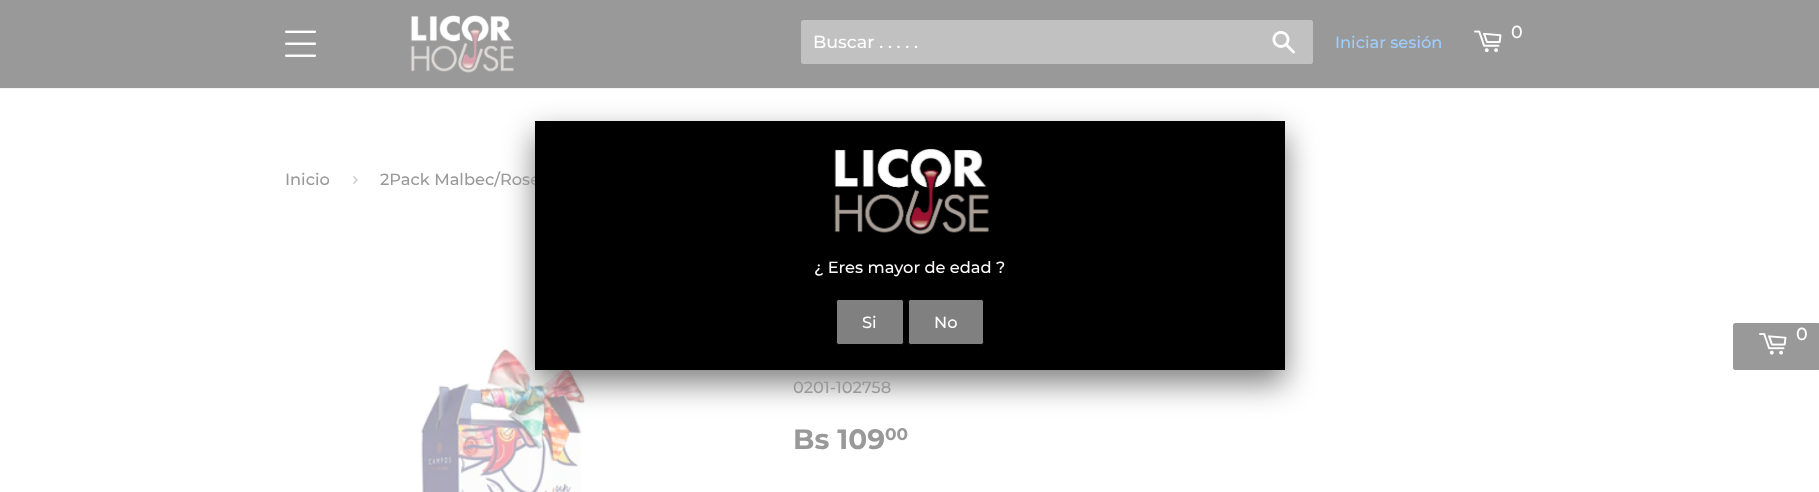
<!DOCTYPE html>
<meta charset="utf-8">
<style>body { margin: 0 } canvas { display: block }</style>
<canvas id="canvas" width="1819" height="492"></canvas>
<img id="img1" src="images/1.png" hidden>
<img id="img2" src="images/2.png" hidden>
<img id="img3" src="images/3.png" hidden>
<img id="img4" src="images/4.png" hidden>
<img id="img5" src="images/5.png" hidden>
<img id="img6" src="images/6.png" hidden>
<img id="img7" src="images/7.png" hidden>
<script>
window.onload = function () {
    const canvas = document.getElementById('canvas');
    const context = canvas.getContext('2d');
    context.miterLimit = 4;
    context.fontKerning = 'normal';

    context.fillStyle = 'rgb(255, 255, 255)';
    context.fillRect(0, 0, 1819, 492);
    context.fillStyle = 'rgb(252, 252, 252)';
    context.fillRect(0, 89, 1819, 1);
    context.fillStyle = 'rgb(153, 153, 153)';
    context.fillRect(0, 0, 1819, 88);
    context.fillStyle = 'rgb(244, 244, 244)';
    context.fillRect(0, 88, 1819, 1);
    context.drawImage(document.getElementById('img1'), 285, 30, 31, 27);
    context.drawImage(document.getElementById('img2'), 410, 15, 105, 59);
    context.drawImage(document.getElementById('img3'), 1474, 30, 28, 23);
    context.fillStyle = 'rgb(193, 193, 194)';
    context.beginPath();
    context.roundRect(801, 20, 512, 44, 2.5);
    context.fill();
    context.drawImage(document.getElementById('img4'), 1272, 31, 23, 23);
    context.drawImage(document.getElementById('img5'), 419, 348, 173, 144);
    context.fillStyle = 'rgb(153, 153, 153)';
    context.beginPath();
    context.roundRect(1733, 323, 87, 47, 2.5);
    context.fill();
    context.drawImage(document.getElementById('img6'), 1759, 333, 28, 22);
    context.fillStyle = 'rgba(0, 0, 0, 0.5)';
    context.filter = 'blur(15.5px)';
    context.beginPath();
    context.rect(535, 134, 750, 249);
    context.fill();
    context.filter = 'none';
    context.font = '500 17.5px Montserrat';
    context.fillStyle = 'rgb(255, 255, 255)';
    context.fillText('0', 1511, 38);
    context.fillText('Buscar . . . . .', 813, 48);
    context.font = '500 16.25px Montserrat';
    context.fillStyle = 'rgb(157, 206, 255)';
    context.fillText('Iniciar sesión', 1335, 48);
    context.fillStyle = 'rgb(153, 153, 153)';
    context.fillText('Inicio', 285, 185);
    context.font = '19px Liberation Sans';
    context.fillStyle = 'rgb(200, 200, 200)';
    context.fillText('›', 352, 185);
    context.font = '500 16.25px Montserrat';
    context.fillStyle = 'rgb(153, 153, 153)';
    context.fillText('2Pack Malbec/Rose', 380, 185);
    context.fillText('0201-102758', 793, 393);
    context.font = 'bold 28px Montserrat';
    context.fillText('Bs 109', 793, 449);
    context.font = 'bold 17px Montserrat';
    context.fillText('00', 885, 440);
    context.font = '500 17.5px Montserrat';
    context.fillStyle = 'rgb(255, 255, 255)';
    context.fillText('0', 1796, 340);
    context.fillStyle = 'rgb(0, 0, 0)';
    context.fillRect(535, 121, 750, 249);
    context.drawImage(document.getElementById('img7'), 834, 148, 155, 87);
    context.font = '500 16.25px Montserrat';
    context.fillStyle = 'rgb(252, 249, 249)';
    context.fillText('¿ Eres mayor de edad ?', 814, 273);
    context.fillStyle = 'rgb(128, 128, 128)';
    context.beginPath();
    context.roundRect(836.5, 299.5, 67, 45, 2);
    context.fill();
    context.strokeStyle = 'rgb(0, 0, 0)';
    context.stroke();
    context.fillStyle = 'rgb(255, 255, 255)';
    context.fillText('Si', 862, 328);
    context.fillStyle = 'rgb(128, 128, 128)';
    context.beginPath();
    context.roundRect(908.5, 299.5, 75, 45, 2);
    context.fill();
    context.stroke();
    context.fillStyle = 'rgb(255, 255, 255)';
    context.fillText('No', 934, 328);
};
</script>
